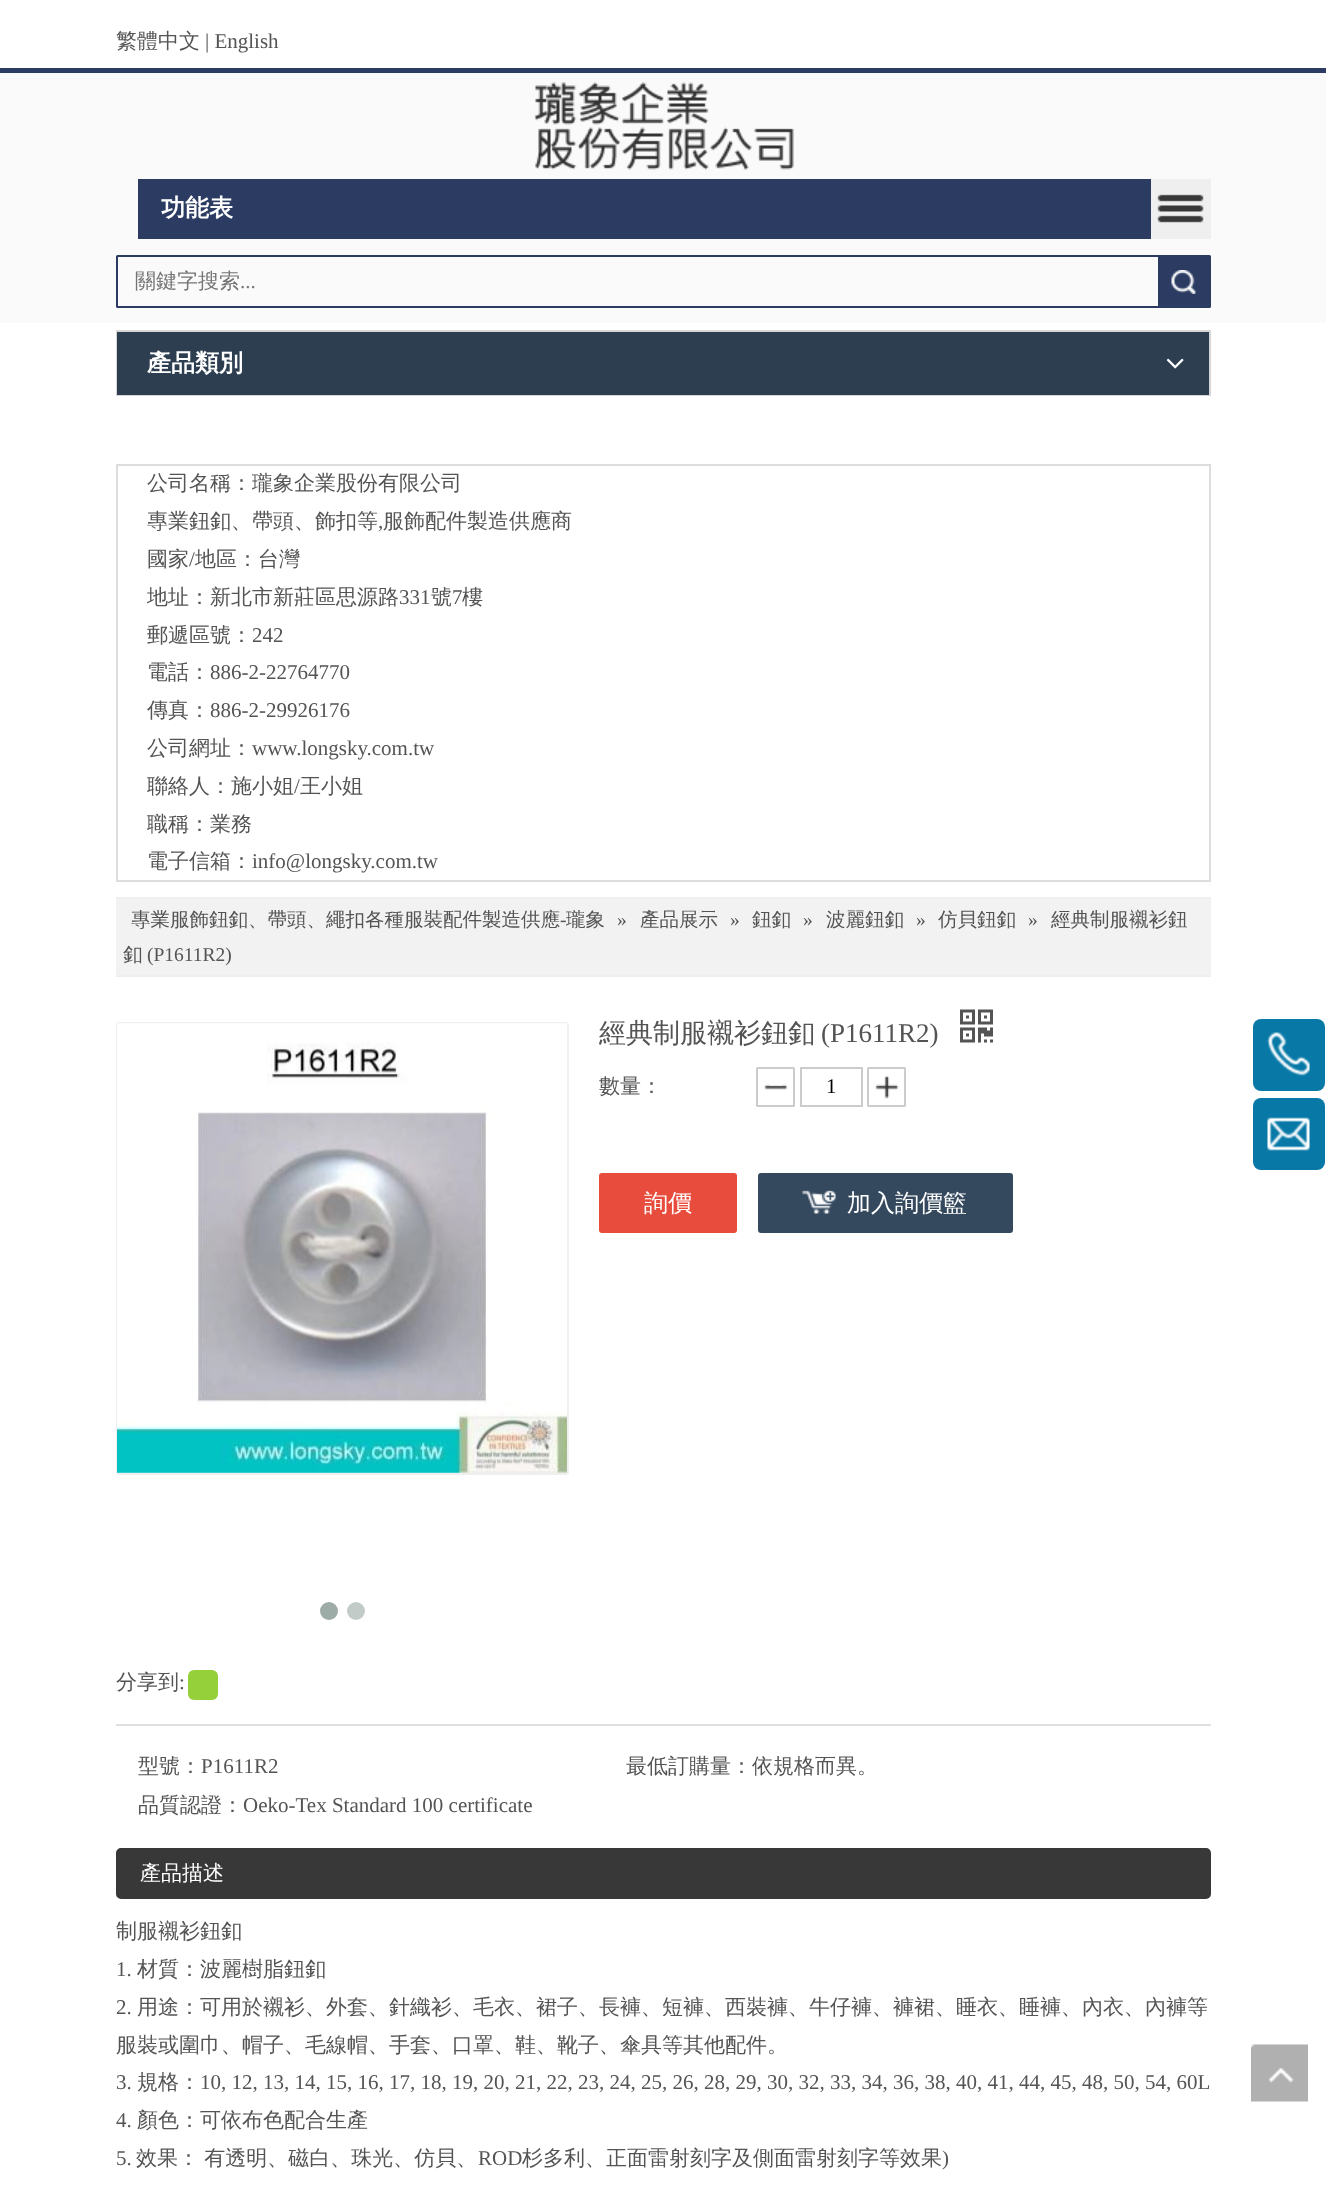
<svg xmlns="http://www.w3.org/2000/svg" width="1326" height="2185">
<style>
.a{font:500 21px WenQuanYi Zen Hei;fill:#545454}
.b{font:21px Liberation Serif;fill:#545454}
.c{font:bold 24px WenQuanYi Zen Hei;fill:#fff}
.d{font:500 21px WenQuanYi Zen Hei;fill:#757575}
.e{font:21px Liberation Serif;fill:#757575}
.f{font:500 19.5px WenQuanYi Zen Hei;fill:#545454}
.g{font:19.5px Liberation Serif;fill:#545454}
.h{font:500 27px WenQuanYi Zen Hei;fill:#545454}
.i{font:27px Liberation Serif;fill:#545454}
.j{font:21px Liberation Serif;fill:#000}
.k{font:500 24px WenQuanYi Zen Hei;fill:#fff}
.l{font:500 21px WenQuanYi Zen Hei;fill:#fff}
</style>
<rect width="100%" height="100%" fill="#fff"/>
<path fill="#fafafa" d="M0 73h1326v250H0z"/>
<path fill="#2b3b62" d="M0 68h1326v5H0z"/>
<image href="1.png" x="534" y="82" width="260" height="88"/>
<path fill="#2b3b62" d="M138 179h1013v60H138z"/>
<path fill="#efefef" d="M1151 179h60v60H1151z"/>
<image href="2.png" x="1157" y="194" width="47" height="29"/>
<rect fill="none" stroke="#2b3b62" stroke-width="2" x="117" y="256" width="1093" height="51" rx="0.5"/>
<path fill="#2b3b62" d="M1158 257h51v49H1158z"/>
<image href="3.png" x="1171" y="270" width="25" height="24"/>
<path fill="none" stroke="#d6d6d6" stroke-width="2" d="M117 331h1093v64H117z"/>
<path fill="#2c3e50" d="M117 332h1092v63H117z"/>
<image href="4.png" x="1166" y="358" width="18" height="11"/>
<path fill="none" stroke="#ddd" stroke-width="2" d="M117 465h1093v416H117z"/>
<path fill="#f2f2f2" d="M116 899h1095v76H116z"/>
<path fill="#eee" d="M116 897h1095v2H116z"/>
<path fill="#eee" d="M116 975h1095v2H116z"/>
<image href="5.png" x="960" y="1009" width="33" height="34"/>
<image href="6.png" x="764" y="1084" width="24" height="6"/>
<rect fill="none" stroke="#ccc" stroke-width="2" x="757" y="1068" width="37" height="38" rx="0.5"/>
<path fill="none" stroke="#ccc" stroke-width="2" d="M801 1068h61v38H801z"/>
<image href="7.png" x="875" y="1075" width="24" height="24"/>
<rect fill="none" stroke="#ccc" stroke-width="2" x="868" y="1068" width="37" height="38" rx="0.5"/>
<rect fill="#e74c3c" x="599" y="1173" width="138" height="60" rx="3"/>
<rect fill="#34495e" x="758" y="1173" width="255" height="60" rx="3"/>
<image href="8.png" x="802" y="1190" width="34" height="24"/>
<rect fill="none" stroke="#efefef" stroke-width="2" x="117" y="1023" width="451" height="451" rx="2"/>
<image href="9.png" x="117" y="1023" width="450" height="450"/>
<circle fill="#9eaca7" cx="329" cy="1611" r="9"/>
<circle fill="#c3cbc8" cx="356" cy="1611" r="9"/>
<rect fill="#95d03a" x="188" y="1670" width="30" height="30" rx="6"/>
<path fill="#dfdfdf" d="M116 1724h1095v2H116z"/>
<rect fill="#383838" stroke="#383838" stroke-width="2" x="117" y="1849" width="1093" height="49" rx="4"/>
<rect fill="#0879a7" x="1253" y="1019" width="72" height="72" rx="8"/>
<image href="10.png" x="1267" y="1032" width="43" height="44"/>
<rect fill="#0879a7" x="1253" y="1098" width="72" height="72" rx="8"/>
<image href="11.png" x="1267" y="1117" width="43" height="34"/>
<image href="12.png" x="1251" y="2044" width="57" height="58"/>
<text class="a" x="116" y="48">繁體中文</text>
<text class="b" x="205" y="48">| English</text>
<text class="c" x="161" y="216">功能表</text>
<text class="d" x="135" y="288">關鍵字搜索</text>
<text class="e" x="240" y="288">...</text>
<text class="c" x="147" y="371">產品類別</text>
<text class="a" x="147" y="490">公司名稱：瓏象企業股份有限公司</text>
<text class="a" x="147" y="528">專業鈕釦、帶頭、飾扣等</text>
<text class="b" x="378" y="528">,</text>
<text class="a" x="383" y="528">服飾配件製造供應商</text>
<text class="a" x="147" y="566">國家</text>
<text class="b" x="189" y="566">/</text>
<text class="a" x="195" y="566">地區：台灣</text>
<text class="a" x="147" y="604">地址：新北市新莊區思源路</text>
<text class="b" x="399" y="604">331</text>
<text class="a" x="431" y="604">號</text>
<text class="b" x="452" y="604">7</text>
<text class="a" x="462" y="604">樓</text>
<text class="a" x="147" y="642">郵遞區號：</text>
<text class="b" x="252" y="642">242</text>
<text class="a" x="147" y="679">電話：</text>
<text class="b" x="210" y="679">886-2-22764770</text>
<text class="a" x="147" y="717">傳真：</text>
<text class="b" x="210" y="717">886-2-29926176</text>
<text class="a" x="147" y="755">公司網址：</text>
<text class="b" x="252" y="755">www.longsky.com.tw</text>
<text class="a" x="147" y="793">聯絡人：施小姐</text>
<text class="b" x="294" y="793">/</text>
<text class="a" x="300" y="793">王小姐</text>
<text class="a" x="147" y="831">職稱：業務</text>
<text class="a" x="147" y="868">電子信箱：</text>
<text class="b" x="252" y="868">info@longsky.com.tw</text>
<text class="f" x="131" y="926">專業服飾鈕釦、帶頭、繩扣各種服裝配件製造供應</text>
<text class="g" x="560" y="926">-</text>
<text class="f" x="566" y="926">瓏象</text>
<text class="g" x="617" y="926">»</text>
<text class="f" x="640" y="926">產品展示</text>
<text class="g" x="730" y="926">»</text>
<text class="f" x="752" y="926">鈕釦</text>
<text class="g" x="803" y="926">»</text>
<text class="f" x="826" y="926">波麗鈕釦</text>
<text class="g" x="916" y="926">»</text>
<text class="f" x="938" y="926">仿貝鈕釦</text>
<text class="g" x="1028" y="926">»</text>
<text class="f" x="1051" y="926">經典制服襯衫鈕</text>
<text class="f" x="123" y="961">釦</text>
<text class="g" x="147" y="961">(P1611R2)</text>
<text class="h" x="599" y="1042">經典制服襯衫鈕釦</text>
<text class="i" x="821" y="1042">(P1611R2)</text>
<text class="a" x="599" y="1093">數量：</text>
<text class="j" x="826" y="1093">1</text>
<text class="k" x="644" y="1211">詢價</text>
<text class="k" x="847" y="1211">加入詢價籃</text>
<text class="a" x="116" y="1689">分享到</text>
<text class="b" x="179" y="1689">:</text>
<text class="a" x="138" y="1773">型號：</text>
<text class="b" x="201" y="1773">P1611R2</text>
<text class="a" x="626" y="1773">最低訂購量：依規格而異。</text>
<text class="a" x="138" y="1812">品質認證：</text>
<text class="b" x="243" y="1812">Oeko-Tex Standard 100 certificate</text>
<text class="l" x="140" y="1880">產品描述</text>
<text class="a" x="116" y="1938">制服襯衫鈕釦</text>
<text class="b" x="116" y="1976">1.</text>
<text class="a" x="137" y="1976">材質：波麗樹脂鈕釦</text>
<text class="b" x="116" y="2014">2.</text>
<text class="a" x="137" y="2014">用途：可用於襯衫、外套、針織衫、毛衣、裙子、長褲、短褲、西裝褲、牛仔褲、褲裙、睡衣、睡褲、內衣、內褲等</text>
<text class="a" x="116" y="2052">服裝或圍巾、帽子、毛線帽、手套、口罩、鞋、靴子、傘具等其他配件。</text>
<text class="b" x="116" y="2089">3.</text>
<text class="a" x="137" y="2089">規格：</text>
<text class="b" x="200" y="2089">10, 12, 13, 14, 15, 16, 17, 18, 19, 20, 21, 22, 23, 24, 25, 26, 28, 29, 30, 32, 33, 34, 36, 38, 40, 41, 44, 45, 48, 50, 54, 60L</text>
<text class="b" x="116" y="2127">4.</text>
<text class="a" x="137" y="2127">顏色：可依布色配合生產</text>
<text class="b" x="116" y="2165">5.</text>
<text class="a" x="136" y="2165" word-spacing="-1">效果： 有透明、磁白、珠光、仿貝、</text>
<text class="b" x="478" y="2165">ROD</text>
<text class="a" x="522" y="2165">杉多利、正面雷射刻字及側面雷射刻字等效果</text>
<text class="b" x="942" y="2165">)</text>
</svg>
